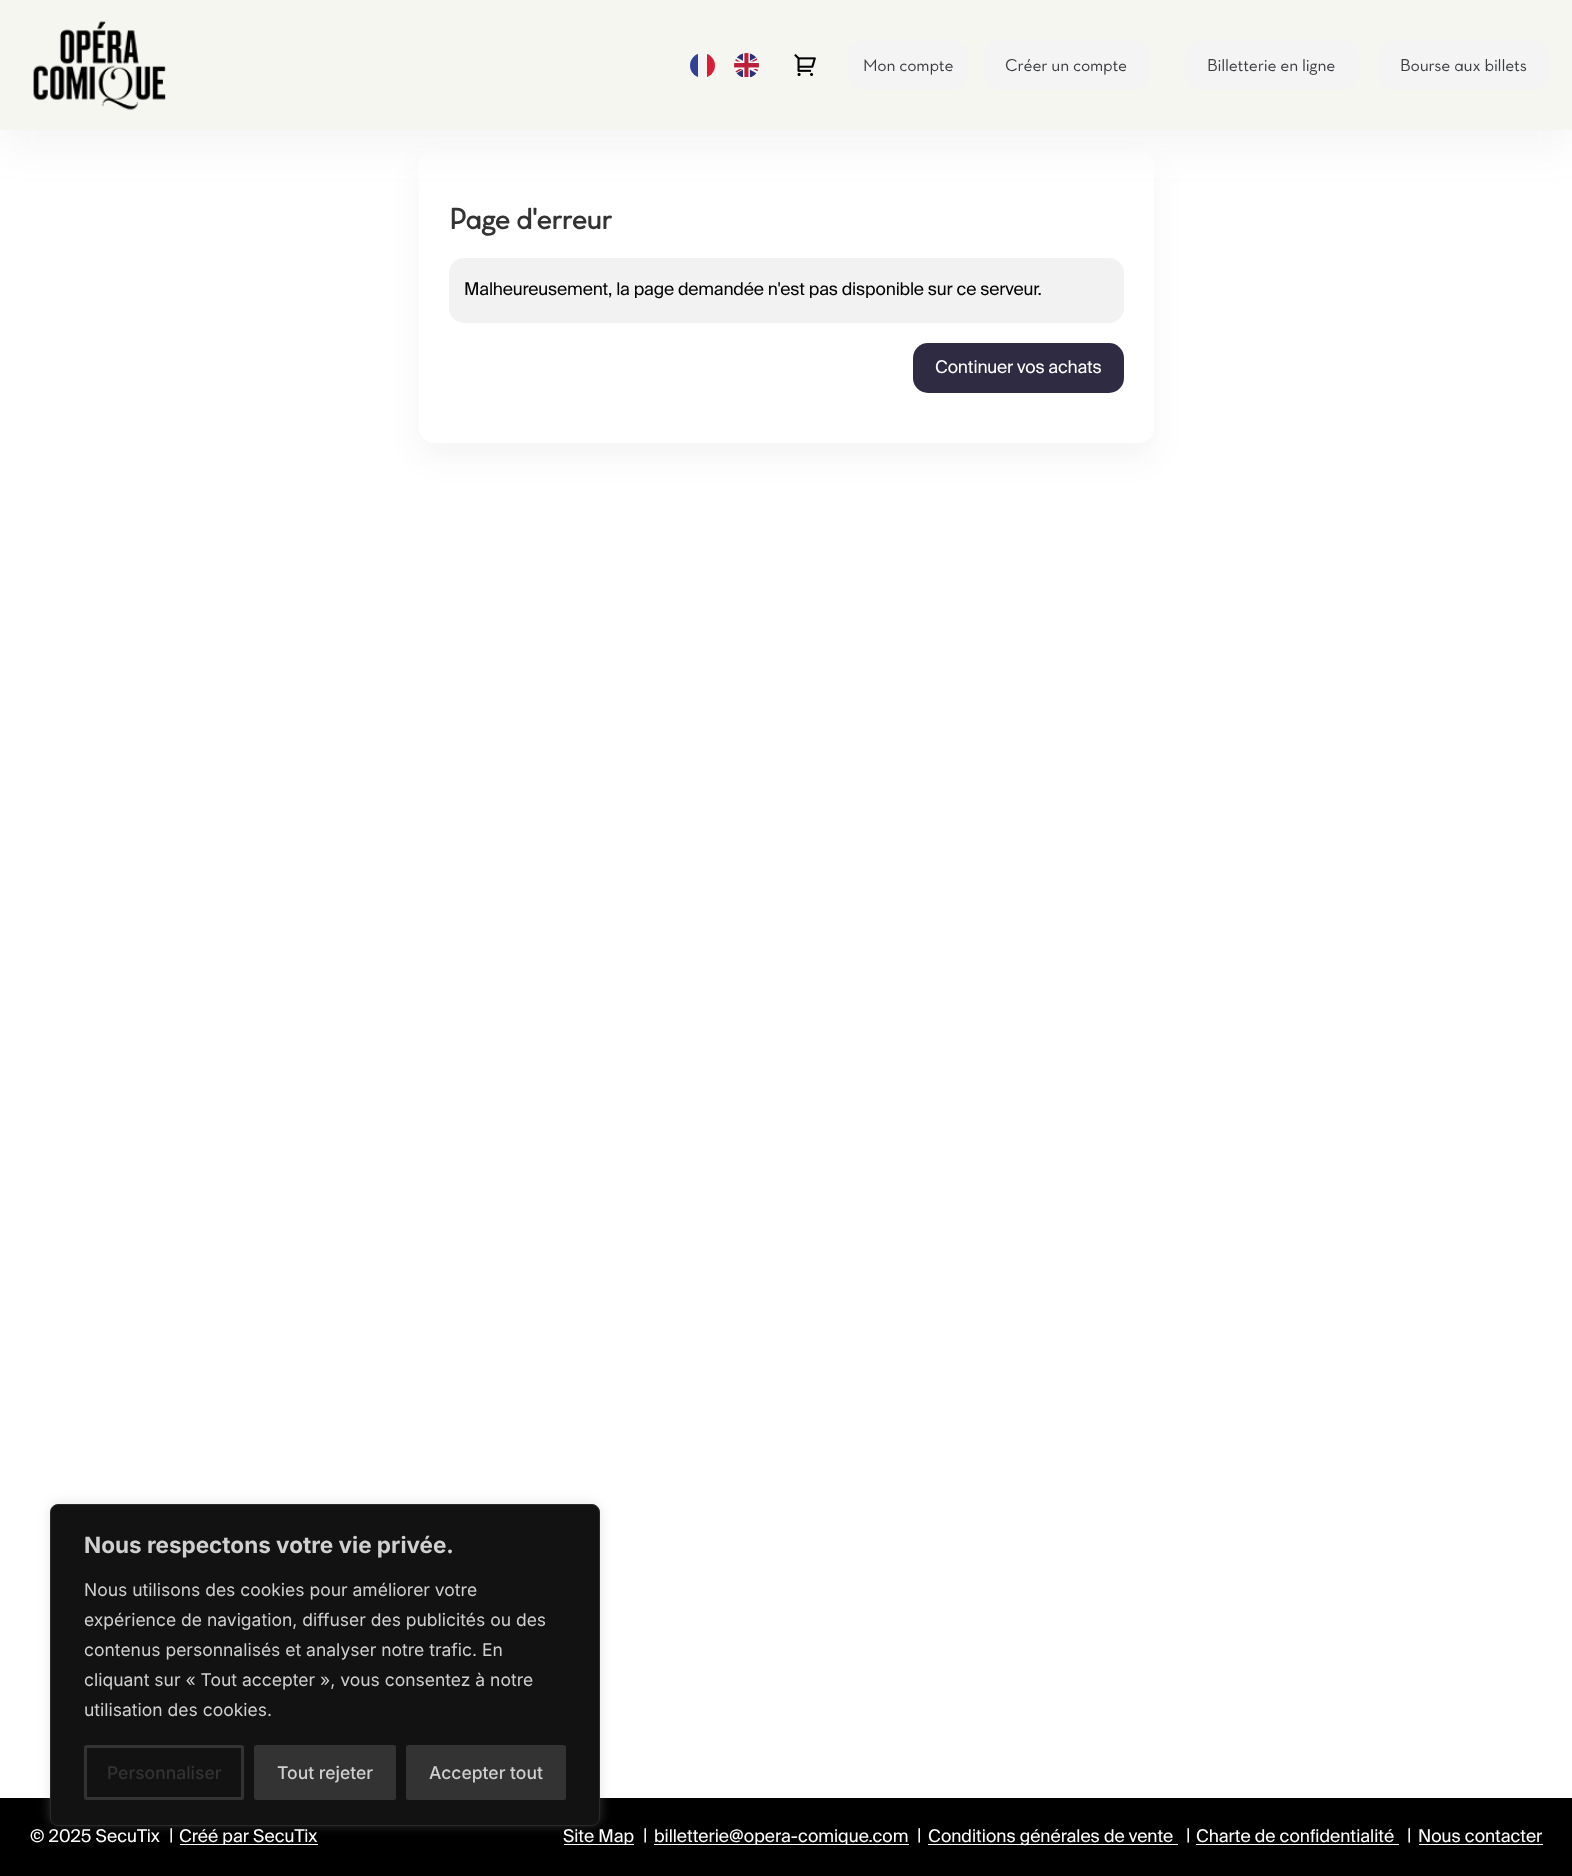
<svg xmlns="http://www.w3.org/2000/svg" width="1572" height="1876">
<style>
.a{font:17.5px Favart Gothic;letter-spacing:-0.18px;fill:#3b3d40}
.b{font:bold 30px Favart Gothic;letter-spacing:-0.5px;fill:#333}
.c{font:17.5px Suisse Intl;letter-spacing:-0.18px;fill:#000}
.d{font:17.5px Suisse Intl;letter-spacing:-0.18px;fill:#fff}
.e{font:17.5px Suisse Intl;fill:#fff}
.f{font:bold 22.5px Inter;fill:#d0d0d0}
.g{font:17.5px Inter;fill:#d0d0d0}
.h{font:500 17.5px Inter;fill:#333}
.i{font:500 17.5px Inter;fill:#d0d0d0}
</style>
<defs>
<clipPath id="clip1"><rect x="690" y="53" width="25" height="25" rx="12.5"/></clipPath>
</defs>
<rect width="100%" height="100%" fill="#fff"/>
<rect fill="#2121210d" filter="blur(15px)" x="419" y="165" width="735" height="293" rx="15"/>
<rect fill="#fff" x="419" y="150" width="735" height="293" rx="15"/>
<path fill="#7a7a7a14" filter="blur(19px)" d="M0 18h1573v130H0z"/>
<path fill="#f6f6f0" d="M0 0h1572v130H0z"/>
<image href="1.png" x="33" y="21" width="133" height="89"/>
<g clip-path="url(#clip1)">
<path fill="#324095" d="M690 53h8v24H690z"/>
<path fill="#f4f4f4" d="M698 53h9v24H698z"/>
<path fill="#d81e34" d="M707 53h8v24H707z"/>
</g>
<image href="2.png" x="734" y="53" width="25" height="24"/>
<image href="3.png" x="794" y="54" width="22" height="22"/>
<rect fill="#f4f4f5" x="848" y="40" width="120" height="50" rx="15"/>
<rect fill="#f4f4f5" x="983" y="40" width="167" height="50" rx="15"/>
<rect fill="#f4f4f5" x="1185" y="40" width="174" height="50" rx="15"/>
<rect fill="#f4f4f5" x="1378" y="40" width="171" height="50" rx="15"/>
<rect fill="#f2f2f2" x="449" y="258" width="675" height="65" rx="15"/>
<rect fill="#2f2b43" x="913" y="343" width="211" height="50" rx="15"/>
<path fill="#000" d="M0 1798h1572v78H0z"/>
<path fill="#fff" d="M180 1844h138v1H180z"/>
<path fill="#fff" d="M564 1844h70v1H564z"/>
<path fill="#fff" d="M654 1844h255v1H654z"/>
<path fill="#fff" d="M928 1844h250v1H928z"/>
<path fill="#fff" d="M1196 1844h203v1H1196z"/>
<path fill="#fff" d="M1419 1844h124v1H1419z"/>
<rect fill="#acabab4d" filter="blur(6px)" x="50" y="1503" width="550" height="322" rx="8"/>
<rect fill="#121212" stroke="#2a2a2a" x="50.5" y="1504.5" width="549" height="321" rx="7.5"/>
<rect fill="none" stroke="#333" stroke-width="3" x="85.5" y="1746.5" width="157" height="52" rx="1"/>
<rect fill="#333" stroke="#333" stroke-width="3" x="255.5" y="1746.5" width="139" height="52" rx="1"/>
<rect fill="#333" stroke="#333" stroke-width="3" x="407.5" y="1746.5" width="157" height="52" rx="1"/>
<text class="a" x="863" y="71">Mon compte</text>
<text class="a" x="1005" y="71">Créer un compte</text>
<text class="a" x="1207" y="71">Billetterie en ligne</text>
<text class="a" x="1400" y="71">Bourse aux billets</text>
<text class="b" x="449" y="229">Page d'erreur</text>
<text class="c" x="464" y="295">Malheureusement, la page demandée n'est pas disponible sur ce serveur.</text>
<text class="d" x="935" y="373">Continuer vos achats</text>
<text class="e" x="30" y="1842">© 2025 SecuTix</text>
<text class="e" x="169" y="1841">|</text>
<text class="e" x="179" y="1842">Créé par SecuTix</text>
<text class="e" x="563" y="1842">Site Map</text>
<text class="e" x="643" y="1841">|</text>
<text class="e" x="654" y="1842">billetterie@opera-comique.com</text>
<text class="e" x="917" y="1841">|</text>
<text class="e" x="928" y="1842">Conditions générales de vente</text>
<text class="e" x="1186" y="1841">|</text>
<text class="e" x="1196" y="1842">Charte de confidentialité</text>
<text class="e" x="1407" y="1841">|</text>
<text class="e" x="1418" y="1842">Nous contacter</text>
<text class="f" x="84" y="1553">Nous respectons votre vie privée.</text>
<text class="g" x="84" y="1596">Nous utilisons des cookies pour améliorer votre</text>
<text class="g" x="84" y="1626">expérience de navigation, diffuser des publicités ou des</text>
<text class="g" x="84" y="1656">contenus personnalisés et analyser notre trafic. En</text>
<text class="g" x="84" y="1686">cliquant sur « Tout accepter », vous consentez à notre</text>
<text class="g" x="84" y="1716">utilisation des cookies.</text>
<text class="h" x="107" y="1779">Personnaliser</text>
<text class="i" x="277" y="1779">Tout rejeter</text>
<text class="i" x="429" y="1779">Accepter tout</text>
</svg>
